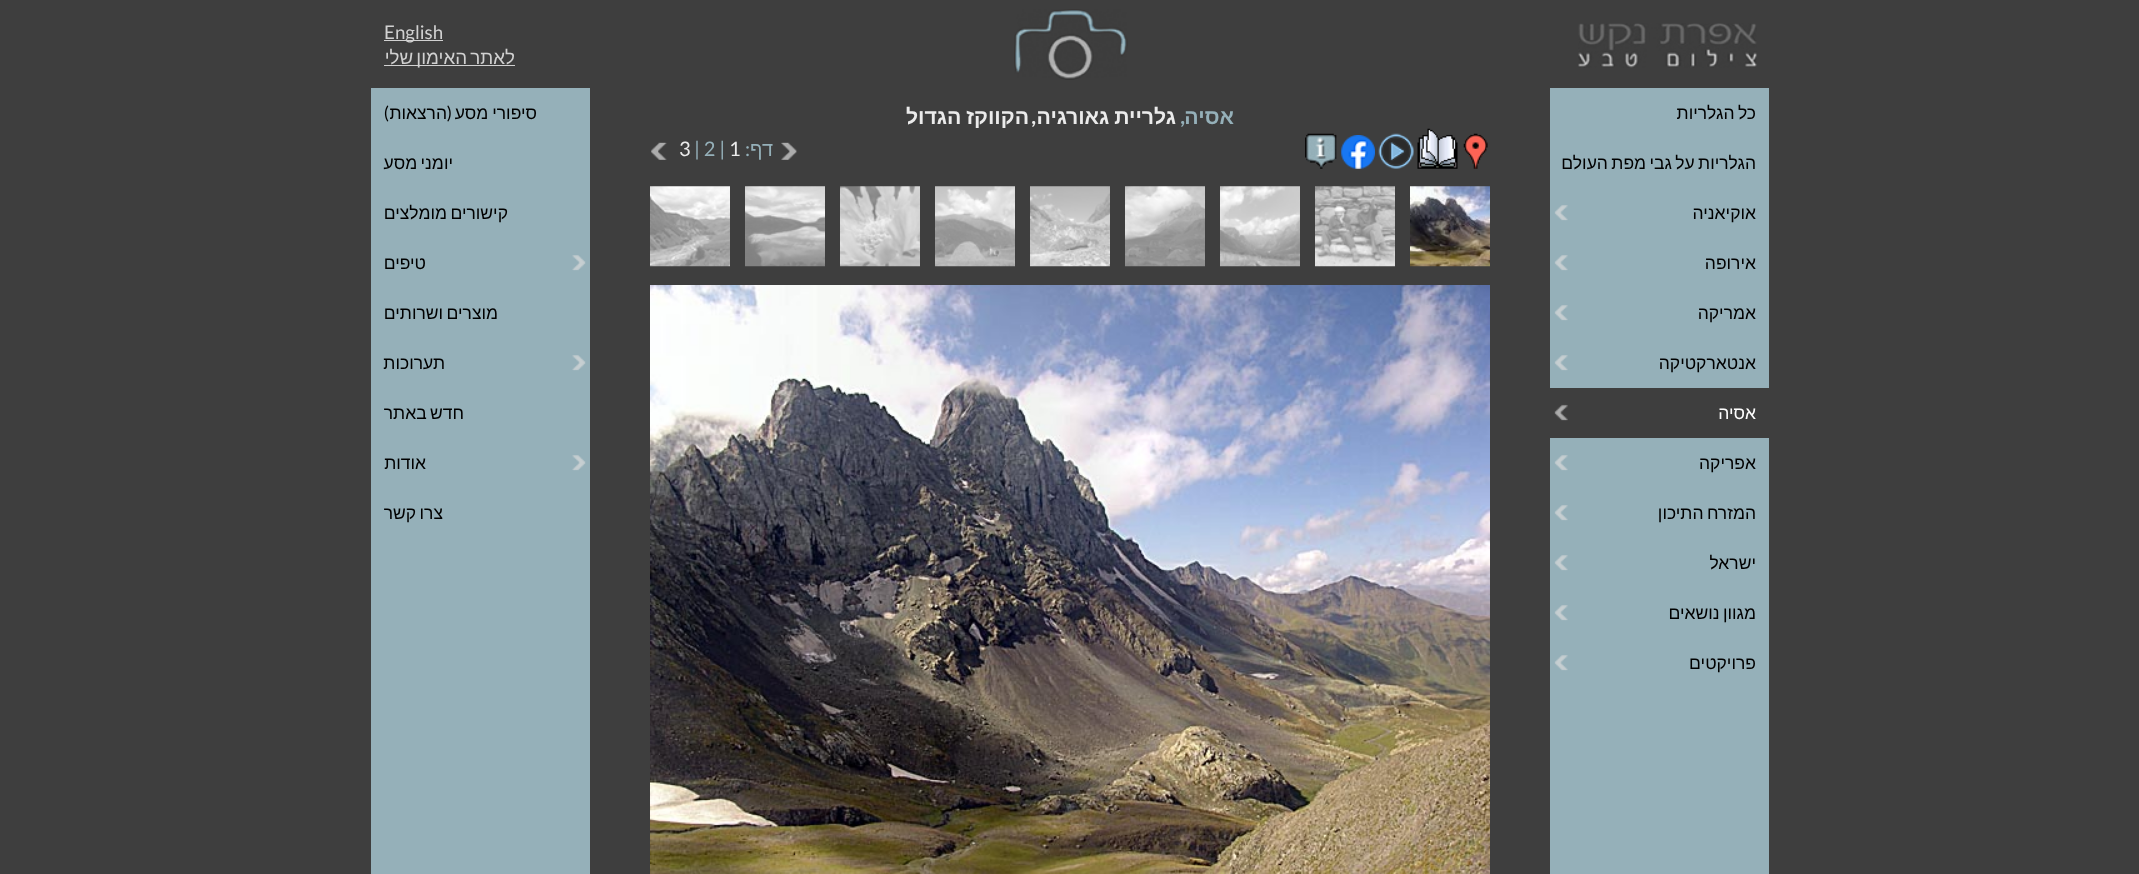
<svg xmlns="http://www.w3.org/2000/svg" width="2139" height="874">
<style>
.a{font:18.75px Lato;fill:#d1d1d1}
.b{font:18.75px Liberation Sans;direction:rtl;fill:#d1d1d1}
.c{font:17.5px Liberation Sans;direction:rtl;fill:#000}
.d{font:17.5px Liberation Sans;direction:rtl;fill:#fff}
.e{font:17.5px Lato;direction:rtl;fill:#000}
.f{font:bold 21.25px Liberation Sans;direction:rtl;fill:#95b0b9}
.g{font:bold 21.25px Lato;direction:rtl;fill:#95b0b9}
.h{font:bold 21.25px Liberation Sans;direction:rtl;fill:#ebebeb}
.i{font:bold 21.25px Lato;direction:rtl;fill:#ebebeb}
.j{font:20px Liberation Sans;direction:rtl;fill:#95b0b9}
.k{font:20px Lato;direction:rtl;fill:#95b0b9}
.l{font:20px Lato;fill:#ebebeb}
.m{font:20px Lato;fill:#95b0b9}
</style>
<rect width="100%" height="100%" fill="#3e3e3e"/>
<image href="1.png" x="1014" y="9" width="114" height="71"/>
<image href="2.png" x="1578" y="23" width="179" height="45"/>
<path fill="#d1d1d1" d="M384 40h59v1H384z"/>
<path fill="#d1d1d1" d="M384 65h131v1H384z"/>
<path fill="#95b0b9" d="M1550 88h219v786H1550z"/>
<image href="3.png" x="1554" y="205" width="14" height="16"/>
<image href="3.png" x="1554" y="255" width="14" height="16"/>
<image href="3.png" x="1554" y="305" width="14" height="16"/>
<image href="3.png" x="1554" y="355" width="14" height="16"/>
<path fill="#3e3e3e" d="M1550 388h219v50H1550z"/>
<image href="4.png" x="1554" y="404" width="14" height="17"/>
<image href="3.png" x="1554" y="455" width="14" height="16"/>
<image href="3.png" x="1554" y="505" width="14" height="16"/>
<image href="3.png" x="1554" y="555" width="14" height="16"/>
<image href="3.png" x="1554" y="605" width="14" height="16"/>
<image href="3.png" x="1554" y="655" width="14" height="16"/>
<path fill="#95b0b9" d="M371 88h219v786H371z"/>
<image href="5.png" x="572" y="255" width="14" height="16"/>
<image href="5.png" x="572" y="355" width="14" height="16"/>
<image href="5.png" x="572" y="455" width="14" height="16"/>
<image href="6.png" x="1463" y="133" width="25" height="36"/>
<image href="7.png" x="1417" y="128" width="41" height="41"/>
<image href="8.png" x="1378" y="133" width="36" height="36"/>
<image href="9.png" x="1341" y="135" width="34" height="34"/>
<image href="10.png" x="1305" y="133" width="32" height="36"/>
<image href="11.png" x="781" y="142" width="16" height="18"/>
<image href="12.png" x="651" y="142" width="16" height="18"/>
<image href="13.png" x="1410" y="186" width="80" height="81"/>
<image href="14.png" x="1315" y="186" width="80" height="81"/>
<image href="15.png" x="1220" y="186" width="80" height="81"/>
<image href="16.png" x="1125" y="186" width="80" height="81"/>
<image href="17.png" x="1030" y="186" width="80" height="81"/>
<image href="18.png" x="935" y="186" width="80" height="81"/>
<image href="19.png" x="840" y="186" width="80" height="81"/>
<image href="20.png" x="745" y="186" width="80" height="81"/>
<image href="21.png" x="650" y="186" width="80" height="81"/>
<image href="22.png" x="650" y="285" width="840" height="589"/>
<text class="a" x="384" y="39">English</text>
<text class="b" x="515" y="64" word-spacing="-2">לאתר האימון שלי</text>
<text class="c" x="1756" y="119" word-spacing="-1.5">כל הגלריות</text>
<text class="c" x="1756" y="169" word-spacing="-1.5">הגלריות על גבי מפת העולם</text>
<text class="c" x="1756" y="219">אוקיאניה</text>
<text class="c" x="1756" y="269">אירופה</text>
<text class="c" x="1756" y="319">אמריקה</text>
<text class="c" x="1756" y="369">אנטארקטיקה</text>
<text class="d" x="1756" y="419">אסיה</text>
<text class="c" x="1756" y="469">אפריקה</text>
<text class="c" x="1756" y="519" word-spacing="-1.5">המזרח התיכון</text>
<text class="c" x="1756" y="569">ישראל</text>
<text class="c" x="1756" y="619" word-spacing="-1.5">מגוון נושאים</text>
<text class="c" x="1756" y="669">פרויקטים</text>
<text class="c" x="537" y="119" word-spacing="-1">סיפורי מסע</text>
<text class="e" x="452" y="119">(</text>
<text class="c" x="447" y="119">הרצאות</text>
<text class="e" x="389" y="119">)</text>
<text class="c" x="453" y="169" word-spacing="-1.5">יומני מסע</text>
<text class="c" x="508" y="219" word-spacing="-1.5">קישורים מומלצים</text>
<text class="c" x="426" y="269">טיפים</text>
<text class="c" x="498" y="319" word-spacing="-1.5">מוצרים ושרותים</text>
<text class="c" x="445" y="369">תערוכות</text>
<text class="c" x="464" y="419" word-spacing="-1.5">חדש באתר</text>
<text class="c" x="426" y="469">אודות</text>
<text class="c" x="443" y="519" word-spacing="-1.5">צרו קשר</text>
<text class="f" x="1234" y="124">אסיה</text>
<text class="g" x="1185" y="124">,</text>
<text class="h" x="1176" y="124" word-spacing="-1">גלריית גאורגיה</text>
<text class="i" x="1036" y="124">,</text>
<text class="h" x="1029" y="124" word-spacing="-1">הקווקז הגדול</text>
<text class="j" x="773" y="156">דף</text>
<text class="k" x="750" y="156">:</text>
<text class="l" x="729" y="156">1</text>
<text class="m" x="694" y="156">| 2 |</text>
<text class="l" x="679" y="156">3</text>
</svg>
